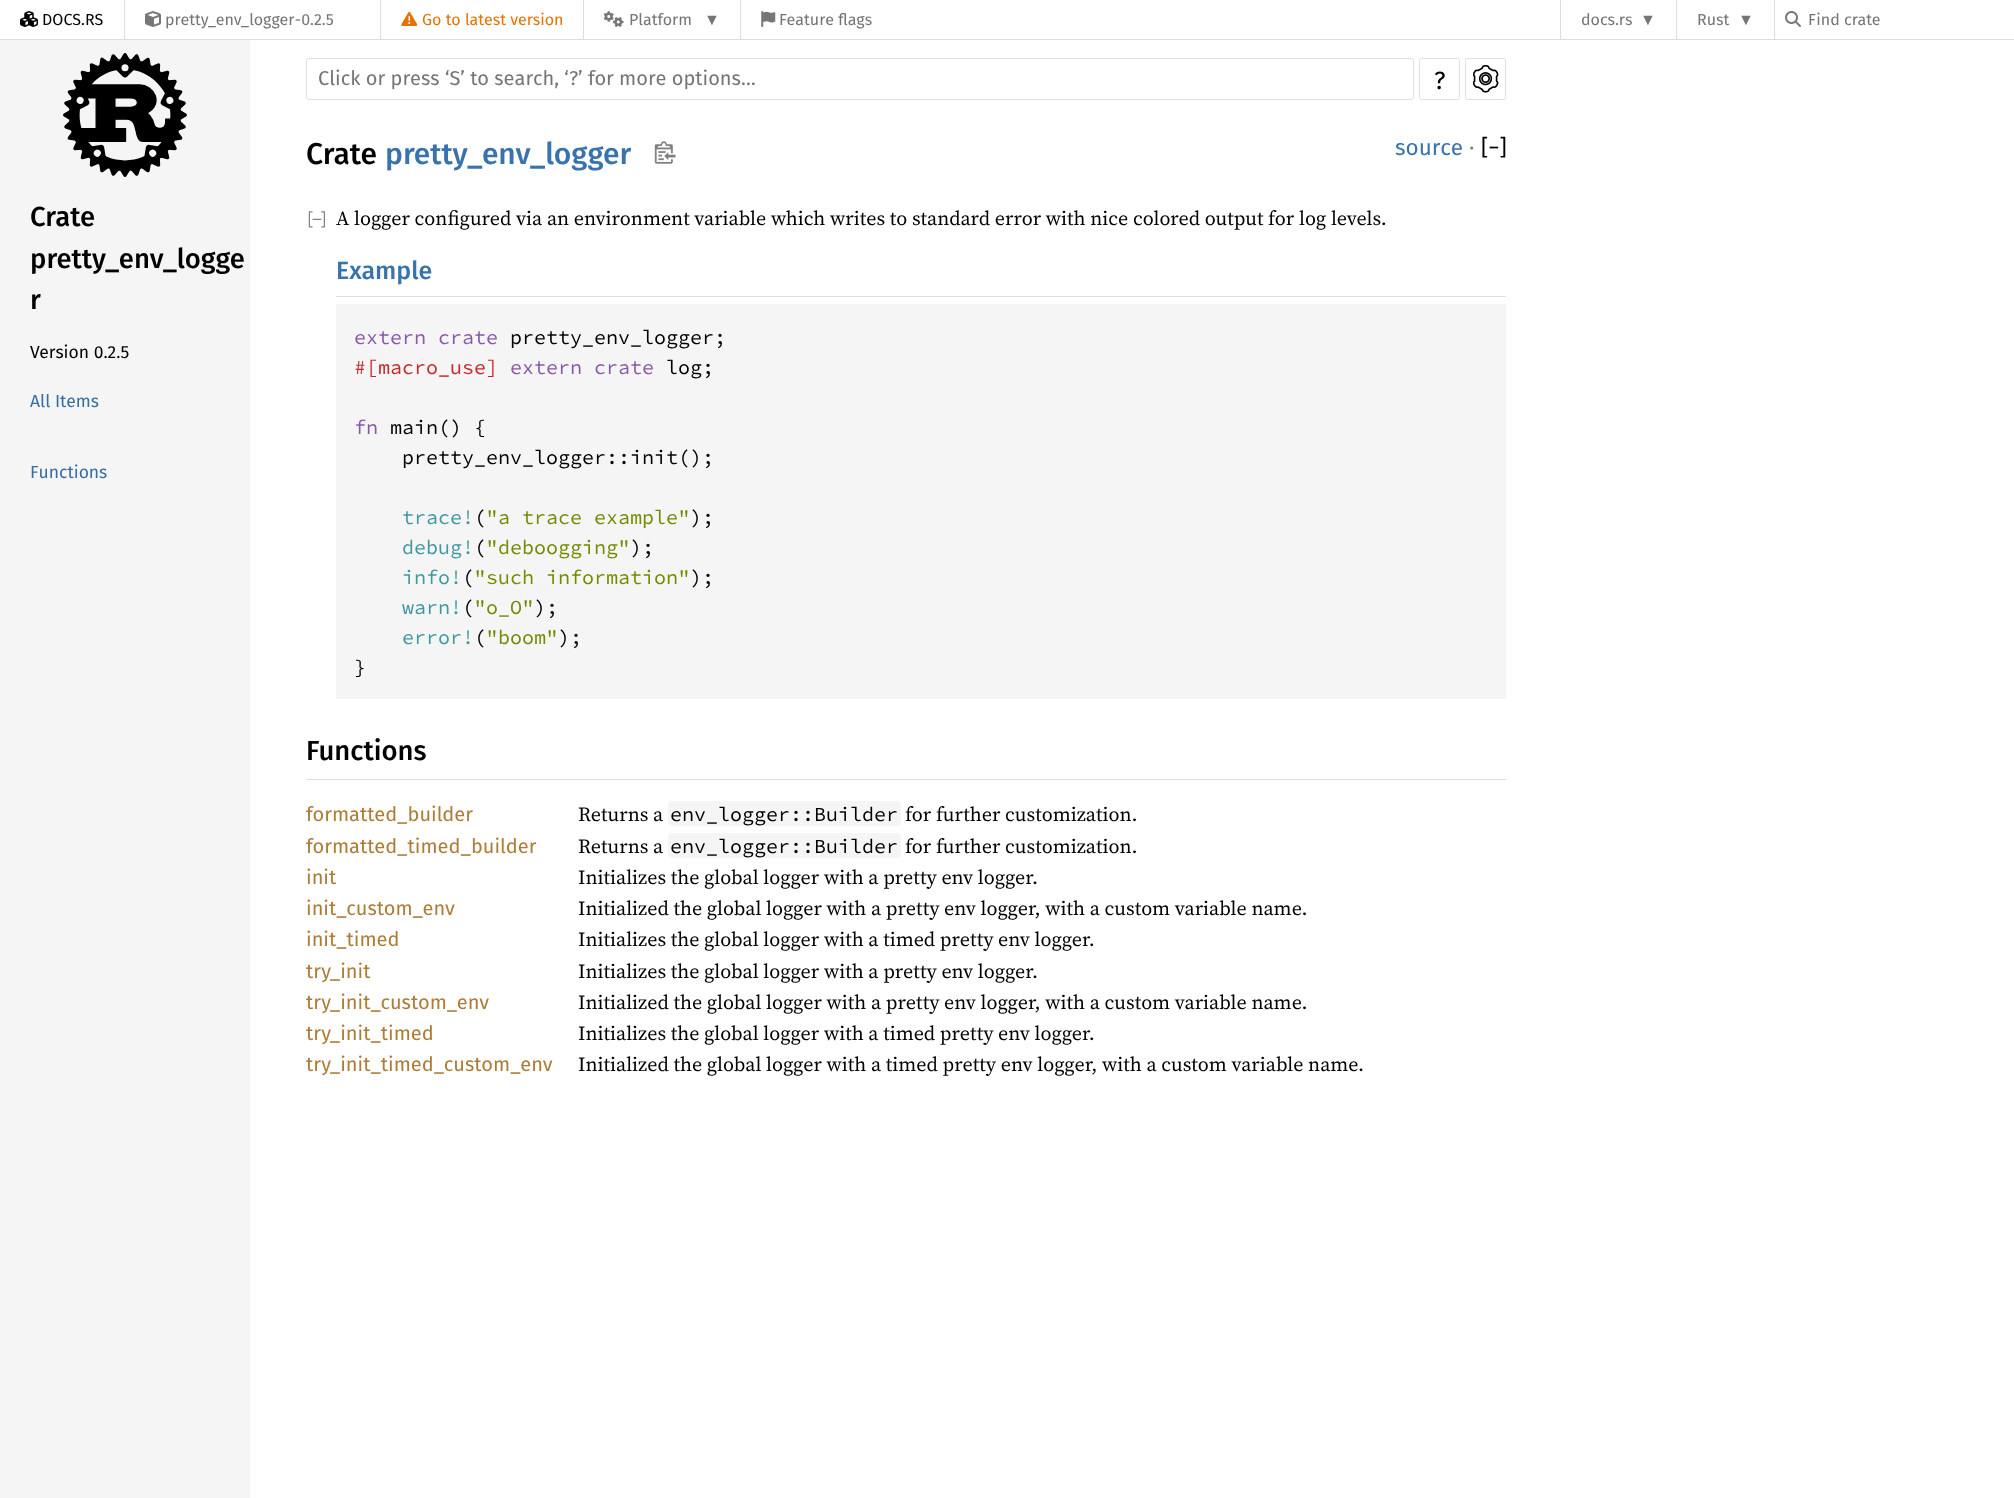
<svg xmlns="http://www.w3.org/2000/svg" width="2014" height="1498">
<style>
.a{font:16px Fira Sans;fill:#000}
.b{font:16px Fira Sans;fill:#757575}
.c{font:16px Fira Sans;fill:#e57300}
.d{font:16px Liberation Sans;fill:#757575}
.e{font:500 27.5px Fira Sans;fill:#000}
.f{font:17.5px Fira Sans;fill:#000}
.g{font:17.5px Fira Sans;fill:#356da4}
.h{font:20px Fira Sans;fill:#757575}
.i{font:25px Fira Sans;fill:#000}
.j{font:500 30px Fira Sans;fill:#000}
.k{font:500 30px Fira Sans;fill:#3873ad}
.l{font:22.5px Fira Sans;fill:#3873ad}
.m{font:22.5px Fira Sans;fill:#808080}
.n{font:22.5px Fira Sans;fill:#000}
.o{font:20px 'Source Serif 4';fill:#000}
.p{font:500 25px Fira Sans;fill:#3873ad}
.q{font:20px Source Code Pro;fill:#8959a8}
.r{font:20px Source Code Pro;fill:#000}
.s{font:20px Source Code Pro;fill:#c82829}
.t{font:20px Source Code Pro;fill:#3e999f}
.u{font:20px Source Code Pro;fill:#718c00}
.v{font:20px Fira Sans;fill:#ad7c37}
</style>
<rect width="100%" height="100%" fill="#fff"/>
<path fill="#ddd" d="M0 39h2014v1H0z"/>
<image href="1.png" x="20" y="11" width="18" height="16"/>
<path fill="#ddd" d="M124 0h1v39H124z"/>
<image href="2.png" x="145" y="11" width="16" height="16"/>
<path fill="#ddd" d="M380 0h1v39H380z"/>
<image href="3.png" x="401" y="12" width="17" height="14"/>
<path fill="#ddd" d="M583 0h1v39H583z"/>
<image href="4.png" x="603" y="11" width="21" height="16"/>
<path fill="#ddd" d="M740 0h1v39H740z"/>
<image href="5.png" x="761" y="11" width="15" height="16"/>
<path fill="#ddd" d="M1560 0h1v39H1560z"/>
<path fill="#ddd" d="M1676 0h1v39H1676z"/>
<path fill="#ddd" d="M1774 0h1v39H1774z"/>
<image href="6.png" x="1785" y="11" width="16" height="16"/>
<path fill="#f5f5f5" d="M0 40h250v1458H0z"/>
<image href="7.png" x="63" y="53" width="124" height="124"/>
<rect fill="none" stroke="#e0e0e0" x="306.5" y="58.5" width="1107" height="41" rx="2"/>
<rect fill="none" stroke="#e0e0e0" x="1419.5" y="58.5" width="40" height="41" rx="2"/>
<rect fill="none" stroke="#e0e0e0" x="1465.5" y="58.5" width="40" height="41" rx="2"/>
<image href="8.png" x="1473" y="65" width="26" height="28"/>
<image href="9.png" x="654" y="141" width="22" height="23"/>
<image href="10.png" x="308" y="211" width="17" height="17"/>
<path fill="#ddd" d="M336 296h1170v1H336z"/>
<path fill="#f5f5f5" d="M336 304h1170v395H336z"/>
<path fill="#ddd" d="M306 779h1200v1H306z"/>
<rect fill="#f5f5f5" x="668" y="801" width="233" height="25" rx="4"/>
<rect fill="#f5f5f5" x="668" y="833" width="233" height="25" rx="4"/>
<text class="a" x="42" y="25">DOCS.RS</text>
<text class="b" x="165" y="25">pretty_env_logger-0.2.5</text>
<text class="c" x="422" y="25">Go to latest version</text>
<text class="b" x="629" y="25">Platform</text>
<text class="d" x="704" y="25">▼</text>
<text class="b" x="779" y="25">Feature flags</text>
<text class="b" x="1581" y="25">docs.rs</text>
<text class="d" x="1640" y="25">▼</text>
<text class="b" x="1697" y="25">Rust</text>
<text class="d" x="1738" y="25">▼</text>
<text class="b" x="1808" y="25">Find crate</text>
<text class="e" x="30" y="226">Crate</text>
<text class="e" x="30" y="268">pretty_env_logge</text>
<text class="e" x="30" y="309">r</text>
<text class="f" x="30" y="358">Version 0.2.5</text>
<text class="g" x="30" y="407">All Items</text>
<text class="g" x="30" y="478">Functions</text>
<text class="h" x="318" y="85">Click or press ‘S’ to search, ‘?’ for more options…</text>
<text class="i" x="1434" y="89">?</text>
<text class="j" x="306" y="164">Crate</text>
<text class="k" x="385" y="164">pretty_env_logger</text>
<text class="l" x="1395" y="155">source</text>
<text class="m" x="1469" y="155">·</text>
<text class="n" x="1481" y="155">[−]</text>
<text class="o" x="336" y="225">A logger configured via an environment variable which writes to standard error with nice colored output for log levels.</text>
<text class="p" x="336" y="279">Example</text>
<text class="q" x="354" y="344">extern crate</text>
<text class="r" x="510" y="344">pretty_env_logger;</text>
<text class="s" x="354" y="374">#[macro_use]</text>
<text class="q" x="510" y="374">extern crate</text>
<text class="r" x="666" y="374">log;</text>
<text class="q" x="354" y="434">fn</text>
<text class="r" x="390" y="434">main() {</text>
<text class="r" x="402" y="464">pretty_env_logger::init();</text>
<text class="t" x="402" y="524">trace!</text>
<text class="r" x="474" y="524">(</text>
<text class="u" x="486" y="524">"a trace example"</text>
<text class="r" x="690" y="524">);</text>
<text class="t" x="402" y="554">debug!</text>
<text class="r" x="474" y="554">(</text>
<text class="u" x="486" y="554">"deboogging"</text>
<text class="r" x="630" y="554">);</text>
<text class="t" x="402" y="584">info!</text>
<text class="r" x="462" y="584">(</text>
<text class="u" x="474" y="584">"such information"</text>
<text class="r" x="690" y="584">);</text>
<text class="t" x="402" y="614">warn!</text>
<text class="r" x="462" y="614">(</text>
<text class="u" x="474" y="614">"o_O"</text>
<text class="r" x="534" y="614">);</text>
<text class="t" x="402" y="644">error!</text>
<text class="r" x="474" y="644">(</text>
<text class="u" x="486" y="644">"boom"</text>
<text class="r" x="558" y="644">);</text>
<text class="r" x="354" y="674">}</text>
<text class="e" x="306" y="760">Functions</text>
<text class="v" x="306" y="821">formatted_builder</text>
<text class="o" x="578" y="821">Returns a</text>
<text class="r" x="670" y="821">env_logger::Builder</text>
<text class="o" x="905" y="821">for further customization.</text>
<text class="v" x="306" y="853">formatted_timed_builder</text>
<text class="o" x="578" y="853">Returns a</text>
<text class="r" x="670" y="853">env_logger::Builder</text>
<text class="o" x="905" y="853">for further customization.</text>
<text class="v" x="306" y="884">init</text>
<text class="o" x="578" y="884">Initializes the global logger with a pretty env logger.</text>
<text class="v" x="306" y="915">init_custom_env</text>
<text class="o" x="578" y="915">Initialized the global logger with a pretty env logger, with a custom variable name.</text>
<text class="v" x="306" y="946">init_timed</text>
<text class="o" x="578" y="946">Initializes the global logger with a timed pretty env logger.</text>
<text class="v" x="306" y="978">try_init</text>
<text class="o" x="578" y="978">Initializes the global logger with a pretty env logger.</text>
<text class="v" x="306" y="1009">try_init_custom_env</text>
<text class="o" x="578" y="1009">Initialized the global logger with a pretty env logger, with a custom variable name.</text>
<text class="v" x="306" y="1040">try_init_timed</text>
<text class="o" x="578" y="1040">Initializes the global logger with a timed pretty env logger.</text>
<text class="v" x="306" y="1071">try_init_timed_custom_env</text>
<text class="o" x="578" y="1071">Initialized the global logger with a timed pretty env logger, with a custom variable name.</text>
</svg>
